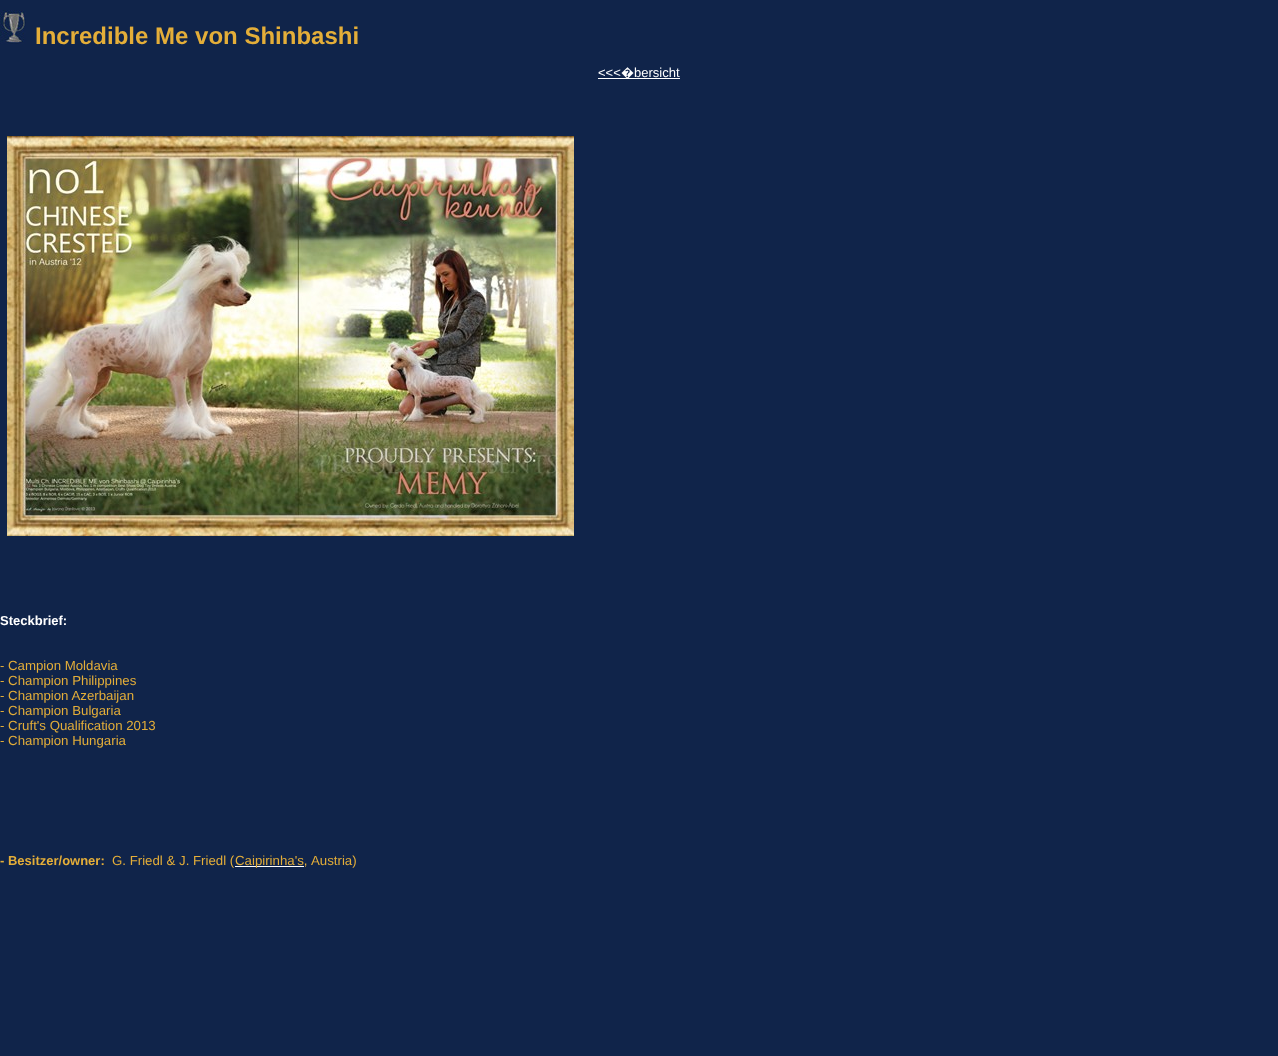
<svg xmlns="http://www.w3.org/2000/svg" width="1278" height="1056">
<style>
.a{font:bold 24px Liberation Sans;fill:#e4ae39}
.b{font:13px Liberation Sans;fill:#fff}
.c{font:13px Noto Sans;fill:#fff}
.d{font:bold 13px Liberation Sans;fill:#fff}
.e{font:13px Liberation Sans;fill:#e4ae39}
.f{font:13.25px Liberation Sans;fill:#e4ae39}
.g{font:bold 13px Liberation Sans;fill:#e4ae39}
</style>
<rect width="100%" height="100%" fill="#10244a"/>
<image href="1.png" x="0" y="10" width="26" height="34"/>
<path fill="#fff" d="M598 78h82v1H598z"/>
<image href="2.png" x="7" y="136" width="567" height="400"/>
<path fill="#fff" d="M235 866h69v1H235z"/>
<text class="a" x="35" y="44">Incredible Me von Shinbashi</text>
<text class="b" x="598" y="77">&lt;&lt;&lt;</text>
<text class="c" x="621" y="77">�</text>
<text class="b" x="634" y="77">bersicht</text>
<text class="d" x="0" y="625">Steckbrief:</text>
<text class="e" x="0" y="670">-</text>
<text class="f" x="8" y="670">Campion Moldavia</text>
<text class="f" x="0" y="685">- Champion Philippines</text>
<text class="f" x="0" y="700">- Champion Azerbaijan</text>
<text class="f" x="0" y="715">- Champion Bulgaria</text>
<text class="f" x="0" y="730">- Cruft's Qualification 2013</text>
<text class="f" x="0" y="745">- Champion Hungaria</text>
<text class="g" x="0" y="865">- Besitzer/owner:</text>
<text class="f" x="112" y="865">G. Friedl &amp; J. Friedl (</text>
<text class="f" x="235" y="865">Caipirinha's,</text>
<text class="f" x="311" y="865">Austria)</text>
</svg>
